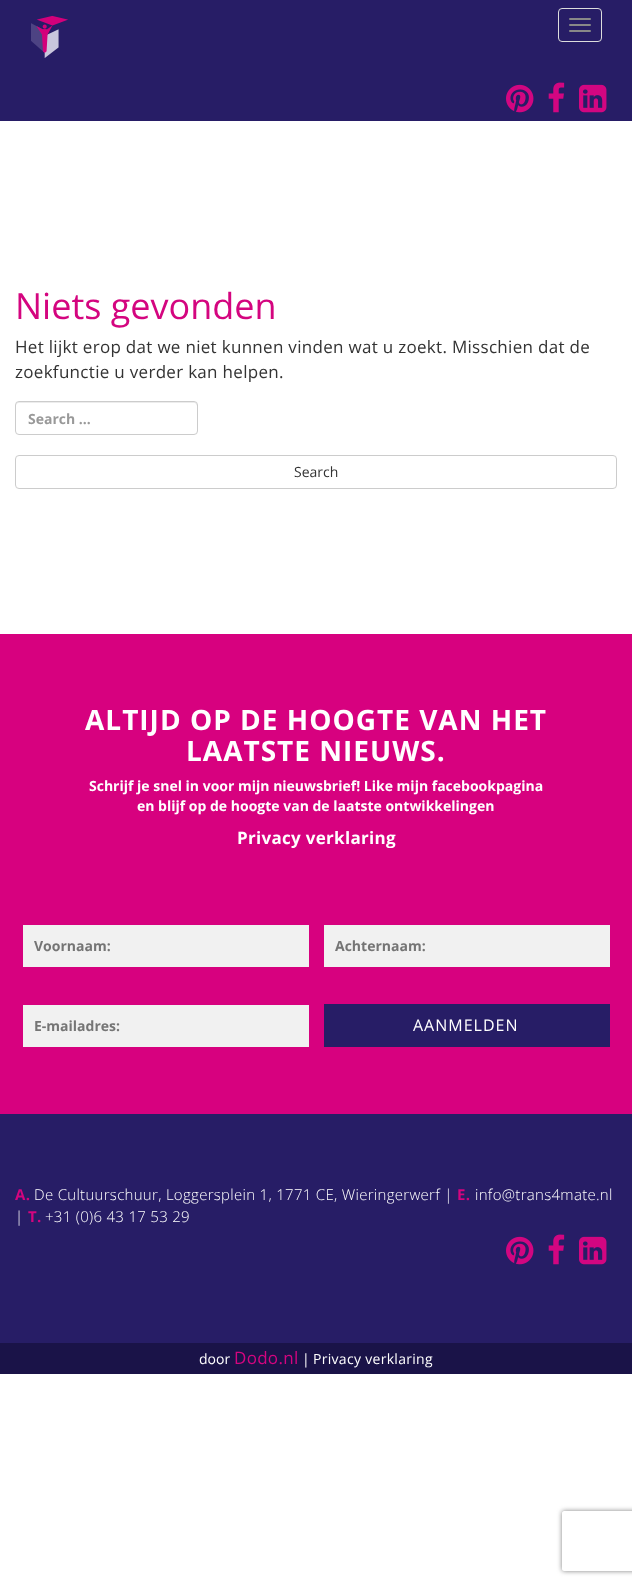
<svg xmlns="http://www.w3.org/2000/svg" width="632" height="1585">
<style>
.a{font:36px Open Sans;fill:#d4057f}
.b{font:17px Open Sans;letter-spacing:0.3px;fill:#333}
.c{font:bold 14px Open Sans;fill:#999}
.d{font:14px Open Sans;fill:#333}
.e{font:bold 28px Open Sans;letter-spacing:1px;fill:#fff}
.f{font:bold 14px Open Sans;fill:#fff}
.g{font:bold 17px Open Sans;letter-spacing:0.3px;fill:#fff}
.h{font:bold 14px Open Sans;fill:#757575}
.i{font:16px Open Sans;letter-spacing:1px;fill:#fff}
.j{font:bold 15px Open Sans;letter-spacing:0.3px;fill:#d4057f}
.k{font:300 15px Open Sans;letter-spacing:0.3px;fill:#fff}
.l{font:14px Open Sans;fill:#fff}
.m{font:17px Open Sans;letter-spacing:0.3px;fill:#d4057f}
.n{font:14px Open Sans;letter-spacing:0.3px;fill:#fff}
</style>
<defs>
<clipPath id="clip1"><path d="M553 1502h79v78h-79zm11 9h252c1 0 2 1 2 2v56c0 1-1 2-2 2h-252c-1 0-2-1-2-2v-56c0-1 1-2 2-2z" clip-rule="evenodd"/></clipPath>
</defs>
<rect width="100%" height="100%" fill="#fff"/>
<path fill="#271d66" d="M0 0h632v121H0z"/>
<image href="1.png" x="31" y="15" width="37" height="43"/>
<rect fill="none" stroke="#ddd" x="558.5" y="8.5" width="43" height="33" rx="3.5"/>
<rect fill="#888" x="569" y="18" width="22" height="2" rx="1"/>
<rect fill="#888" x="569" y="24" width="22" height="2" rx="1"/>
<rect fill="#888" x="569" y="30" width="22" height="2" rx="1"/>
<image href="2.png" x="506" y="84" width="28" height="29"/>
<image href="3.png" x="548" y="82" width="17" height="31"/>
<image href="4.png" x="579" y="84" width="28" height="29"/>
<path fill="#ececec" d="M19 403h176l1 1l1 2v-1c0-2-1-3-3-3h-175c-2 0-3 1-3 3v1c0-2 1-3 3-3z"/>
<rect fill="none" stroke="#ccc" x="15.5" y="401.5" width="182" height="33" rx="3.5"/>
<rect fill="none" stroke="#ccc" x="15.5" y="455.5" width="601" height="33" rx="3.5"/>
<path fill="#d7017f" d="M0 634h632v480H0z"/>
<path fill="#f1f1f1" d="M23 925h286v42H23z"/>
<path fill="#f1f1f1" d="M324 925h286v42H324z"/>
<path fill="#f1f1f1" d="M23 1005h286v42H23z"/>
<path fill="#271d66" d="M324 1004h286v43H324z"/>
<path fill="#271d66" d="M0 1114h632v229H0z"/>
<image href="2.png" x="506" y="1236" width="28" height="29"/>
<image href="3.png" x="548" y="1234" width="17" height="31"/>
<image href="4.png" x="579" y="1236" width="28" height="29"/>
<path fill="#1a1348" d="M0 1343h632v31H0z"/>
<g clip-path="url(#clip1)">
<rect fill="#808080" filter="blur(2.5px)" x="562" y="1511" width="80" height="60" rx="2"/>
</g>
<text class="a" x="15" y="319">Niets gevonden</text>
<text class="b" x="15" y="353">Het lijkt erop dat we niet kunnen vinden wat u zoekt. Misschien dat de</text>
<text class="b" x="15" y="378">zoekfunctie u verder kan helpen.</text>
<text class="c" x="28" y="424">Search …</text>
<text class="d" x="294" y="477">Search</text>
<text class="e" x="85" y="730">ALTIJD OP DE HOOGTE VAN HET</text>
<text class="e" x="186" y="761">LAATSTE NIEUWS.</text>
<text class="f" x="89" y="791">Schrijf je snel in voor mijn nieuwsbrief! Like mijn facebookpagina</text>
<text class="f" x="137" y="811">en blijf op de hoogte van de laatste ontwikkelingen</text>
<text class="g" x="237" y="844">Privacy verklaring</text>
<text class="h" x="34" y="951">Voornaam:</text>
<text class="h" x="335" y="951">Achternaam:</text>
<text class="h" x="34" y="1031">E-mailadres:</text>
<text class="i" x="413" y="1031">AANMELDEN</text>
<text class="j" x="15" y="1200">A.</text>
<text class="k" x="34" y="1200">De Cultuurschuur, Loggersplein 1, 1771 CE, Wieringerwerf |</text>
<text class="j" x="457" y="1200">E.</text>
<text class="k" x="475" y="1200">info@trans4mate.nl</text>
<text class="k" x="15" y="1222">|</text>
<text class="j" x="28" y="1222">T.</text>
<text class="k" x="45" y="1222">+31 (0)6 43 17 53 29</text>
<text class="l" x="199" y="1364">door</text>
<text class="m" x="234" y="1364">Dodo.nl</text>
<text class="l" x="302" y="1364">|</text>
<text class="n" x="313" y="1364">Privacy verklaring</text>
</svg>
